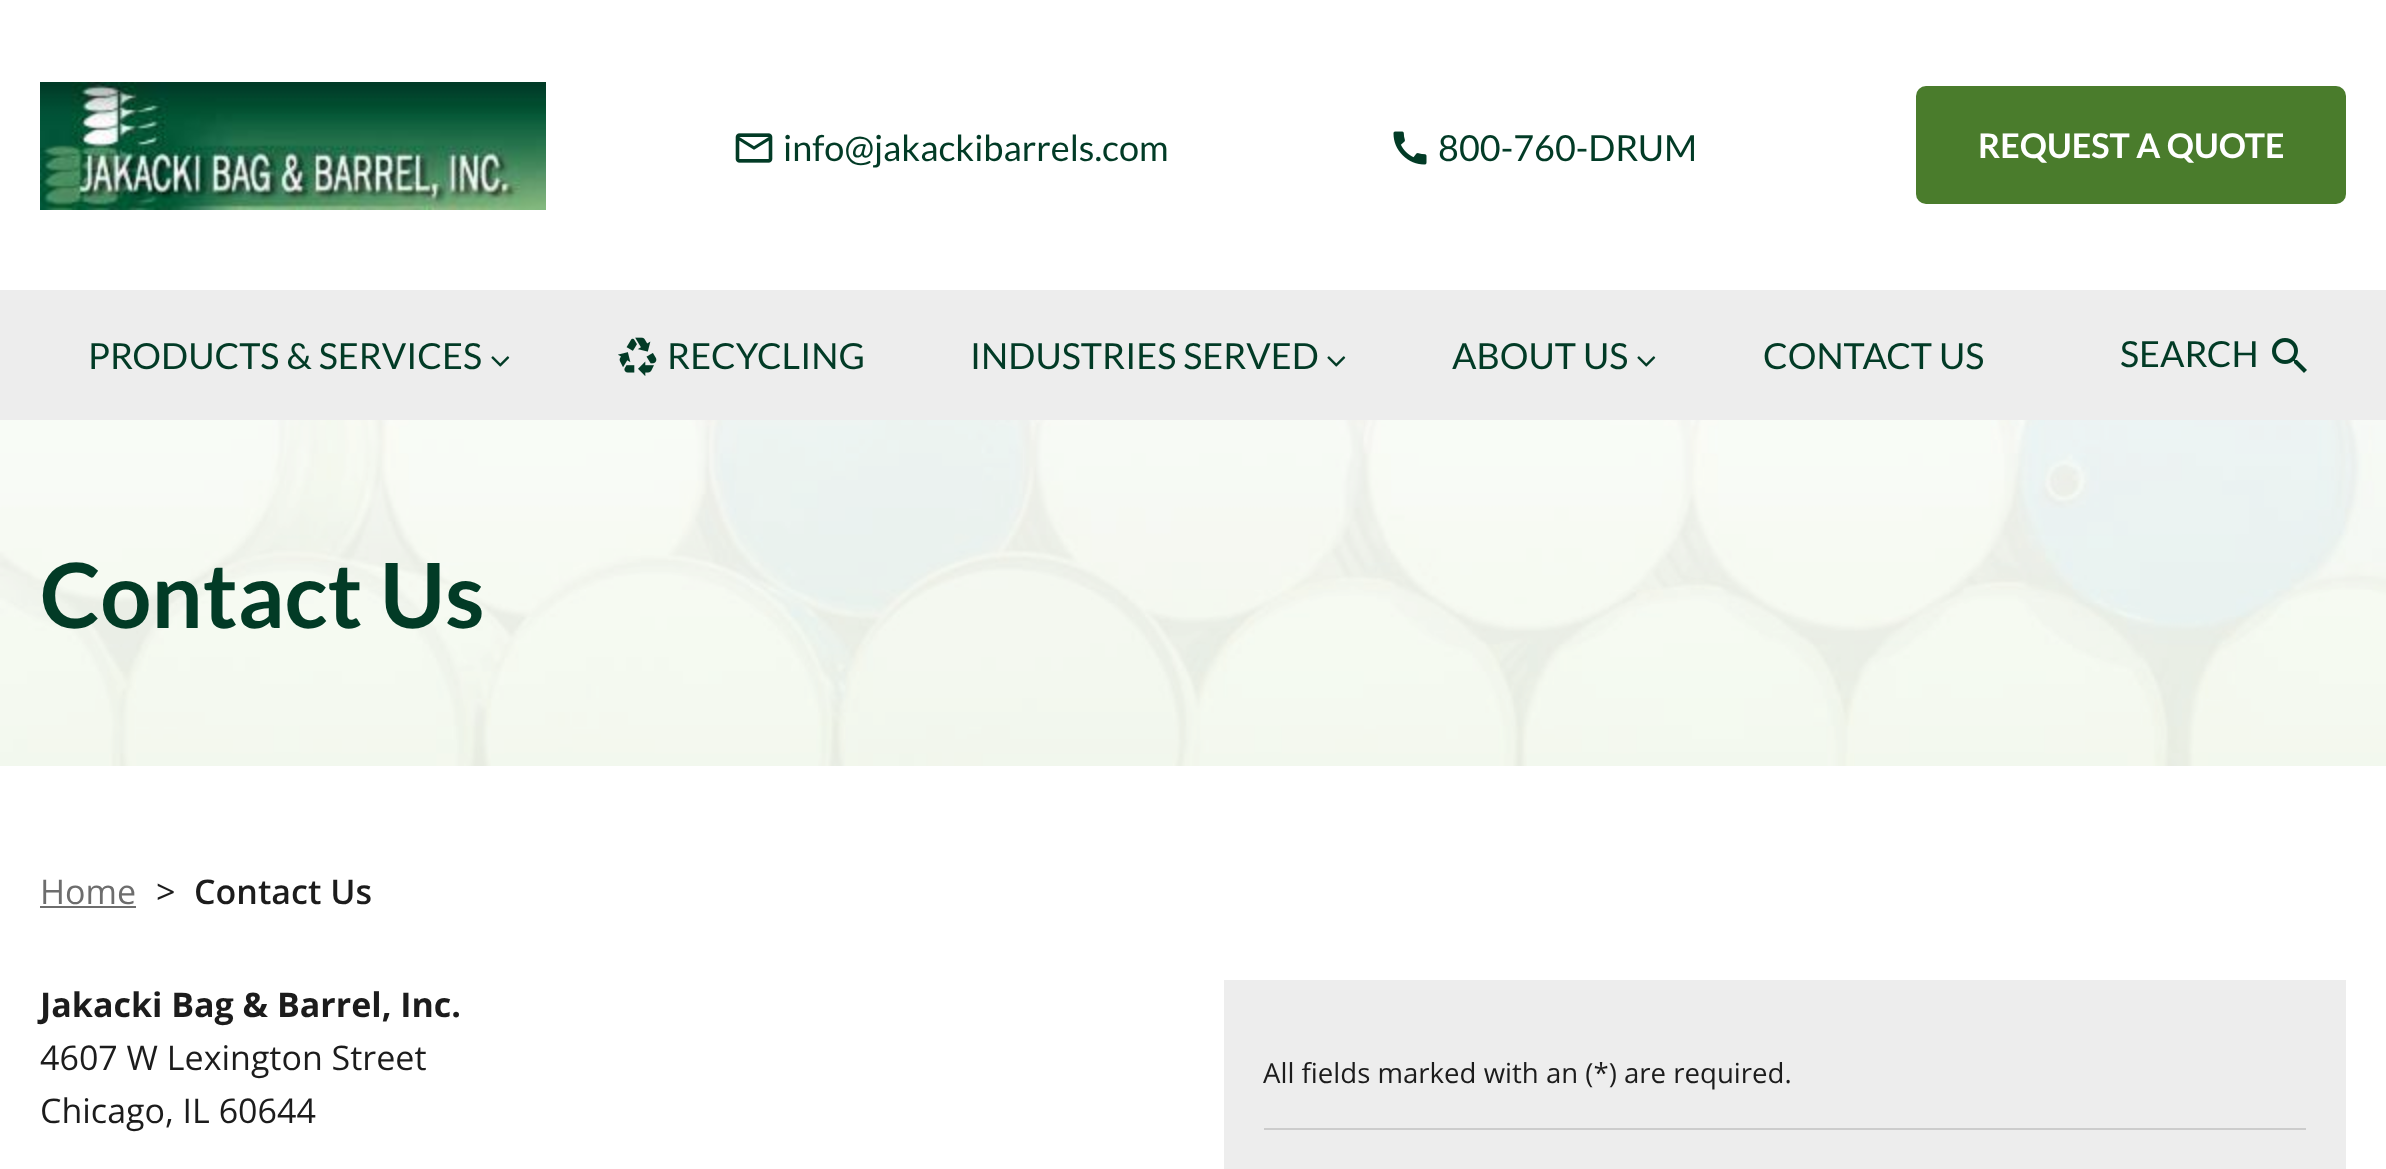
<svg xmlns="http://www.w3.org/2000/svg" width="2386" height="1169">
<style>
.a{font:36px Lato;fill:#023b26}
.b{font:bold 34px Lato;fill:#fff}
.c{font:bold 90px Lato;fill:#023b26}
.d{font:34px Open Sans;fill:#6d6d6d}
.e{font:34px Open Sans;fill:#1c1c1c}
.f{font:600 34px Open Sans;fill:#1c1c1c}
.g{font:bold 34px Open Sans;fill:#1c1c1c}
.h{font:27.6px Open Sans;fill:#1c1c1c}
</style>
<rect width="100%" height="100%" fill="#fff"/>
<image href="1.png" x="40" y="82" width="506" height="128"/>
<image href="2.png" x="735" y="133" width="38" height="30"/>
<image href="3.png" x="1393" y="131" width="34" height="34"/>
<rect fill="#4a7c2c" x="1916" y="86" width="430" height="118" rx="10"/>
<path fill="#ededed" d="M0 290h2386v130H0z"/>
<image href="4.png" x="491" y="356" width="19" height="11"/>
<image href="5.png" x="618" y="337" width="39" height="39"/>
<image href="4.png" x="1327" y="356" width="19" height="11"/>
<image href="4.png" x="1637" y="356" width="19" height="11"/>
<image href="6.png" x="2272" y="338" width="35" height="35"/>
<image href="7.png" x="0" y="420" width="2386" height="346"/>
<path fill="#6d6d6d" d="M40 906h96v2H40z"/>
<path fill="#ededed" d="M1224 980h1122v189H1224z"/>
<path fill="#ccc" d="M1264 1128h1042v2H1264z"/>
<text class="a" x="783" y="161">info@jakackibarrels.com</text>
<text class="a" x="1438" y="161">800-760-DRUM</text>
<text class="b" x="1978" y="158">REQUEST A QUOTE</text>
<text class="a" x="88" y="369">PRODUCTS &amp; SERVICES</text>
<text class="a" x="667" y="369">RECYCLING</text>
<text class="a" x="970" y="369">INDUSTRIES SERVED</text>
<text class="a" x="1452" y="369">ABOUT US</text>
<text class="a" x="1763" y="369">CONTACT US</text>
<text class="a" x="2120" y="367">SEARCH</text>
<text class="c" x="40" y="628">Contact Us</text>
<text class="d" x="40" y="904">Home</text>
<text class="e" x="156" y="904">&gt;</text>
<text class="f" x="194" y="904">Contact Us</text>
<text class="g" x="40" y="1017">Jakacki Bag &amp; Barrel, Inc.</text>
<text class="e" x="40" y="1070">4607 W Lexington Street</text>
<text class="e" x="40" y="1123">Chicago, IL 60644</text>
<text class="h" x="1263" y="1083">All fields marked with an (*) are required.</text>
</svg>
